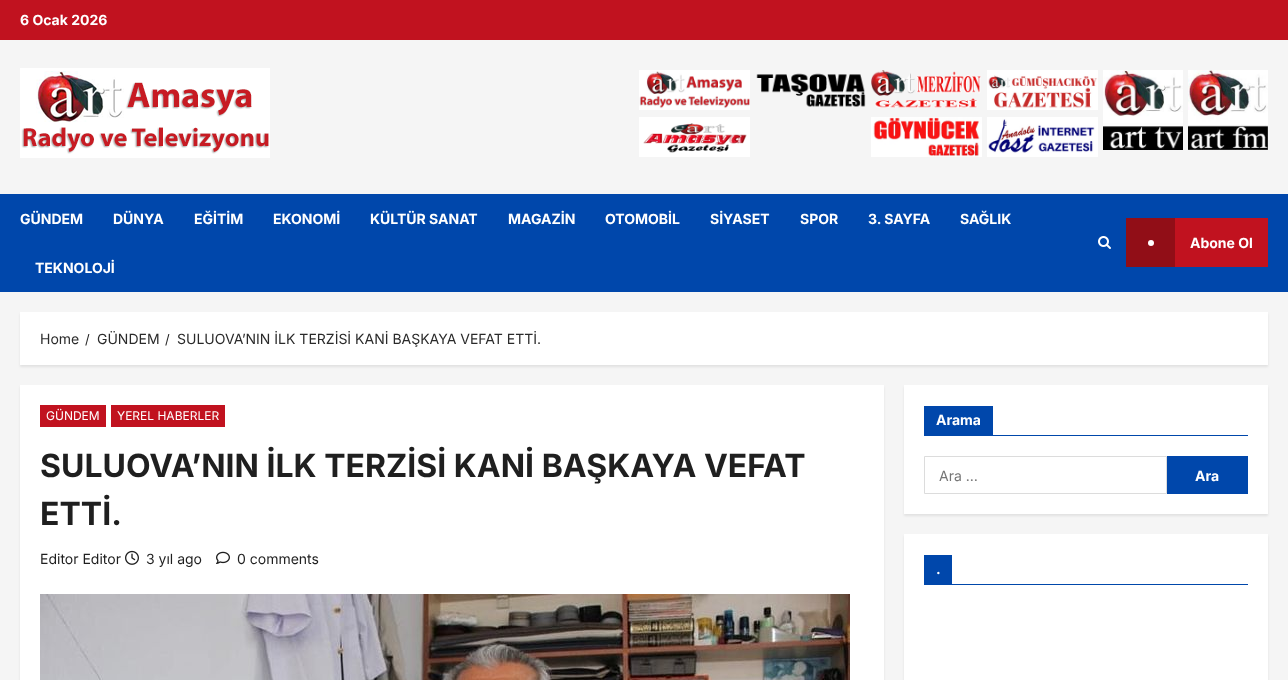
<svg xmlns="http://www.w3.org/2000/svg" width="1288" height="680">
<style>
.a{font:bold 14px Inter;fill:#fff}
.b{font:14px Inter;fill:#2a2a2a}
.c{font:13px Inter;fill:#1f1f1f}
.d{font:12px Inter;fill:#fff}
.e{font:bold 32px Inter;fill:#1f1f1f}
.f{font:14px Inter;fill:#1f1f1f}
.g{font:14px Inter;fill:#757575}
</style>
<rect width="100%" height="100%" fill="#f5f5f5"/>
<path fill="#c1121f" d="M0 0h1288v40H0z"/>
<image href="1.png" x="20" y="68" width="250" height="90"/>
<image href="2.png" x="639" y="70" width="111" height="40"/>
<image href="3.png" x="639" y="117" width="111" height="40"/>
<image href="4.png" x="756" y="73" width="110" height="34"/>
<image href="5.png" x="871" y="70" width="110" height="38"/>
<image href="6.png" x="871" y="117" width="111" height="40"/>
<image href="7.png" x="987" y="70" width="111" height="40"/>
<image href="8.png" x="987" y="117" width="111" height="40"/>
<image href="9.png" x="1103" y="70" width="80" height="80"/>
<image href="10.png" x="1188" y="70" width="80" height="80"/>
<path fill="#0047ab" d="M0 194h1288v98H0z"/>
<image href="11.png" x="1098" y="236" width="13" height="13"/>
<path fill="#c1121f" d="M1175 218h93v49H1175z"/>
<path fill="#910e17" d="M1126 218h49v49H1126z"/>
<circle fill="#fff" cx="1151" cy="243" r="3"/>
<path fill="#00000014" filter="blur(1px)" d="M20 314h1248v53H20z"/>
<path fill="#fff" d="M20 312h1248v53H20z"/>
<path fill="#00000014" filter="blur(1px)" d="M20 387h864v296H20z"/>
<path fill="#fff" d="M20 385h864v295H20z"/>
<path fill="#c1121f" d="M40 405h66v22H40z"/>
<path fill="#c1121f" d="M111 405h114v22H111z"/>
<image href="12.png" x="125" y="550" width="14" height="15"/>
<image href="13.png" x="216" y="551" width="14" height="13"/>
<image href="14.png" x="40" y="594" width="810" height="86"/>
<path fill="#00000014" filter="blur(1px)" d="M904 387h364v129H904z"/>
<path fill="#fff" d="M904 385h364v129H904z"/>
<path fill="#0047ab" d="M924 435h324v1H924z"/>
<path fill="#0047ab" d="M924 406h69v29H924z"/>
<path fill="none" stroke="#dcdcdc" d="M924.5 456.5h242v37H924.5z"/>
<path fill="#0047ab" d="M1167 456h81v38H1167z"/>
<path fill="#00000014" filter="blur(1px)" d="M904 536h364v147H904z"/>
<path fill="#fff" d="M904 534h364v146H904z"/>
<path fill="#0047ab" d="M924 584h324v1H924z"/>
<path fill="#0047ab" d="M924 555h28v29H924z"/>
<text class="a" x="20" y="25">6 Ocak 2026</text>
<text class="a" x="20" y="224">GÜNDEM</text>
<text class="a" x="113" y="224">DÜNYA</text>
<text class="a" x="194" y="224">EĞİTİM</text>
<text class="a" x="273" y="224">EKONOMİ</text>
<text class="a" x="370" y="224">KÜLTÜR SANAT</text>
<text class="a" x="508" y="224">MAGAZİN</text>
<text class="a" x="605" y="224">OTOMOBİL</text>
<text class="a" x="710" y="224">SİYASET</text>
<text class="a" x="800" y="224">SPOR</text>
<text class="a" x="868" y="224">3. SAYFA</text>
<text class="a" x="960" y="224">SAĞLIK</text>
<text class="a" x="35" y="273">TEKNOLOJİ</text>
<text class="a" x="1190" y="248">Abone Ol</text>
<text class="b" x="40" y="344">Home</text>
<text class="c" x="85" y="344">/</text>
<text class="b" x="97" y="344">GÜNDEM</text>
<text class="c" x="165" y="344">/</text>
<text class="b" x="177" y="344">SULUOVA’NIN İLK TERZİSİ KANİ BAŞKAYA VEFAT ETTİ.</text>
<text class="d" x="46" y="420">GÜNDEM</text>
<text class="d" x="117" y="420">YEREL HABERLER</text>
<text class="e" x="40" y="477">SULUOVA’NIN İLK TERZİSİ KANİ BAŞKAYA VEFAT</text>
<text class="e" x="40" y="525">ETTİ.</text>
<text class="f" x="40" y="564">Editor Editor</text>
<text class="f" x="146" y="564">3 yıl ago</text>
<text class="f" x="237" y="564">0 comments</text>
<text class="a" x="936" y="425">Arama</text>
<text class="g" x="939" y="481">Ara …</text>
<text class="a" x="1195" y="481">Ara</text>
<text class="a" x="936" y="574">.</text>
</svg>
